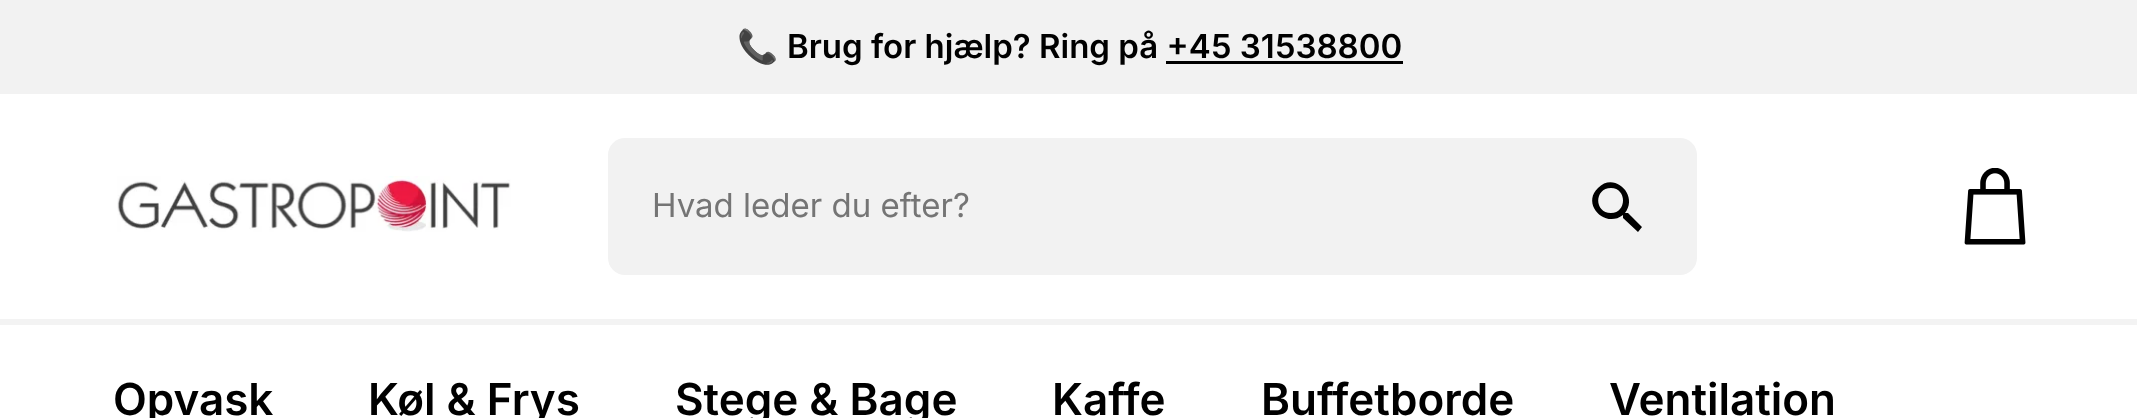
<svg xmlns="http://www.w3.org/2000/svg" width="2137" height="418">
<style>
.a{font:bold 33px Noto Color Emoji;fill:#000}
.b{font:600 33px Inter;fill:#000}
.c{font:33px Inter;fill:#757575}
.d{font:600 44px Inter;fill:#000}
</style>
<rect width="100%" height="100%" fill="#f2f2f2"/>
<path fill="#000" d="M1166 61h237v3H1166z"/>
<path fill="#fff" d="M0 94h2137v324H0z"/>
<image href="1.png" x="117" y="176" width="394" height="56"/>
<rect fill="#f2f2f2" x="608" y="138" width="1089" height="137" rx="17"/>
<path fill="#000" d="M1628 213h-3c14-18-11-42-27-25c-17 16 7 41 25 27v3l15 14l4-5zm-17 0c-17 0-17-25 0-25c16 0 16 25 0 25z"/>
<image href="2.png" x="1964" y="168" width="62" height="77"/>
<path fill="#f3f3f3" d="M0 319h2137v6H0z"/>
<text class="a" x="737" y="58">📞</text>
<text class="b" x="787" y="58">Brug for hjælp? Ring på +45 31538800</text>
<text class="c" x="652" y="217">Hvad leder du efter?</text>
<text class="d" x="113" y="415">Opvask</text>
<text class="d" x="368" y="415">Køl &amp; Frys</text>
<text class="d" x="675" y="415">Stege &amp; Bage</text>
<text class="d" x="1052" y="415">Kaffe</text>
<text class="d" x="1261" y="415">Buffetborde</text>
<text class="d" x="1609" y="415">Ventilation</text>
</svg>
